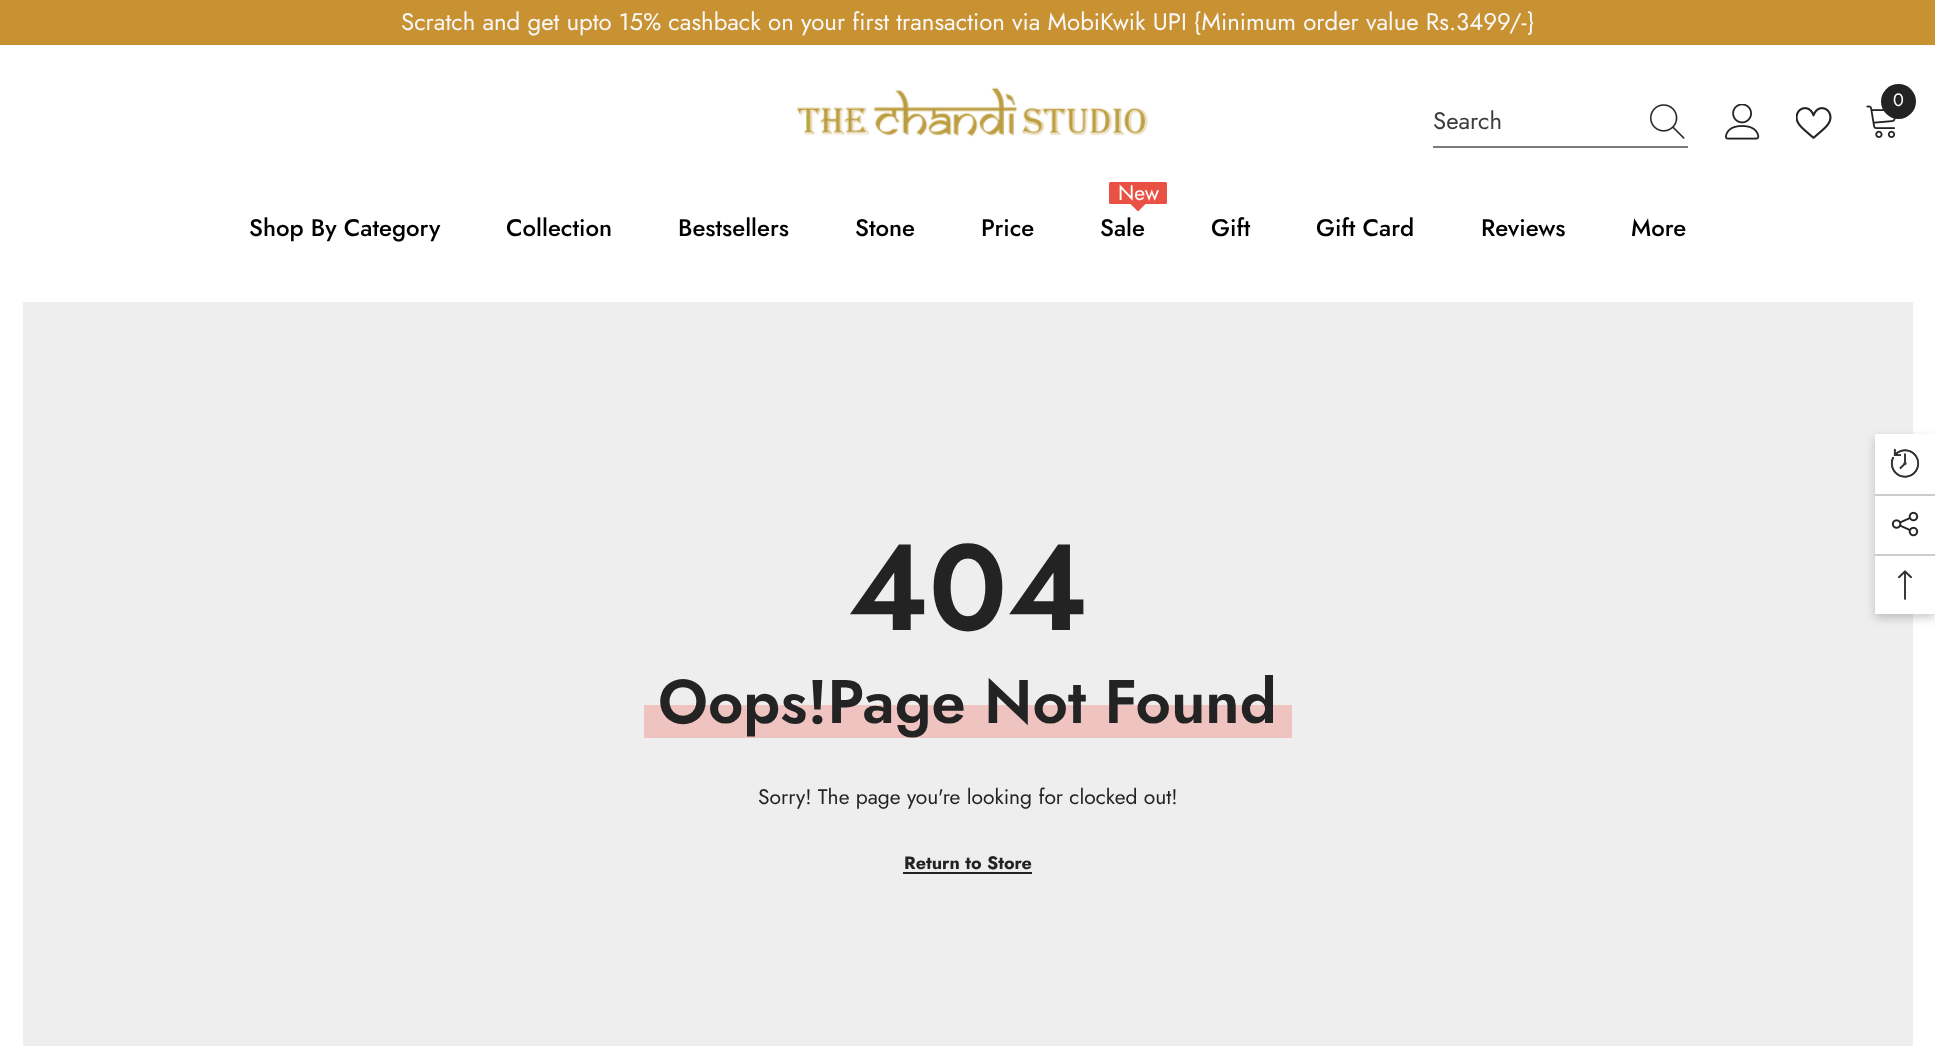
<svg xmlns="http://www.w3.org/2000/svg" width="1935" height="1046">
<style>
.a{font:24px Jost;fill:#f8f8f8}
.b{font:18px Jost;fill:#fff}
.c{font:24px Jost;fill:#3c3c3c}
.d{font:500 24px Jost;fill:#000}
.e{font:21px Jost;fill:#fff}
.f{font:600 122px Jost;fill:#232323}
.g{font:600 61.5px Jost;fill:#232323}
.h{font:21px Jost;fill:#232323}
.i{font:bold 18px Jost;fill:#232323}
</style>
<rect width="100%" height="100%" fill="#fff"/>
<path fill="#c89233" d="M0 0h1935v45H0z"/>
<image href="1.png" x="796" y="87" width="352" height="50"/>
<image href="2.png" x="1866" y="105" width="30" height="33"/>
<circle fill="#232323" cx="1898.5" cy="101.5" r="17.5"/>
<image href="3.png" x="1725" y="104" width="35" height="36"/>
<image href="4.png" x="1796" y="107" width="36" height="32"/>
<path fill="#7b7b7b" d="M1433 146h255v2H1433z"/>
<image href="5.png" x="1650" y="104" width="35" height="35"/>
<rect fill="#e95144" x="1109" y="182" width="58" height="22" rx="1.5"/>
<path fill="#e95144" d="M1130.5 204h15l-7.5 7.5z"/>
<path fill="#eee" d="M23 302h1890v744H23z"/>
<path fill="#efc3c0" d="M644 705h648v33H644z"/>
<path fill="#232323" d="M903 872h129v2H903z"/>
<path fill="#00000033" filter="blur(5px)" d="M1875 438h60v180H1875z"/>
<path fill="#fff" d="M1875 434h60v180H1875z"/>
<image href="6.png" x="1890" y="449" width="30" height="29"/>
<path fill="#ccc" d="M1875 494h60v2H1875z"/>
<image href="7.png" x="1891" y="511" width="28" height="26"/>
<path fill="#ccc" d="M1875 554h60v2H1875z"/>
<image href="8.png" x="1898" y="570" width="14" height="30"/>
<text class="a" x="401" y="30">Scratch and get upto 15% cashback on your first transaction via MobiKwik UPI {Minimum order value Rs.3499/-}</text>
<text class="b" x="1893" y="106">0</text>
<text class="c" x="1433" y="129">Search</text>
<text class="d" x="249" y="236">Shop By Category</text>
<text class="d" x="506" y="236">Collection</text>
<text class="d" x="678" y="236">Bestsellers</text>
<text class="d" x="855" y="236">Stone</text>
<text class="d" x="981" y="236">Price</text>
<text class="e" x="1118" y="200">New</text>
<text class="d" x="1100" y="236">Sale</text>
<text class="d" x="1211" y="236">Gift</text>
<text class="d" x="1316" y="236">Gift Card</text>
<text class="d" x="1481" y="236">Reviews</text>
<text class="d" x="1631" y="236">More</text>
<text class="f" x="848" y="630">404</text>
<text class="g" x="658" y="723">Oops!Page Not Found</text>
<text class="h" x="758" y="804">Sorry! The page you're looking for clocked out!</text>
<text class="i" x="904" y="869">Return to Store</text>
</svg>
